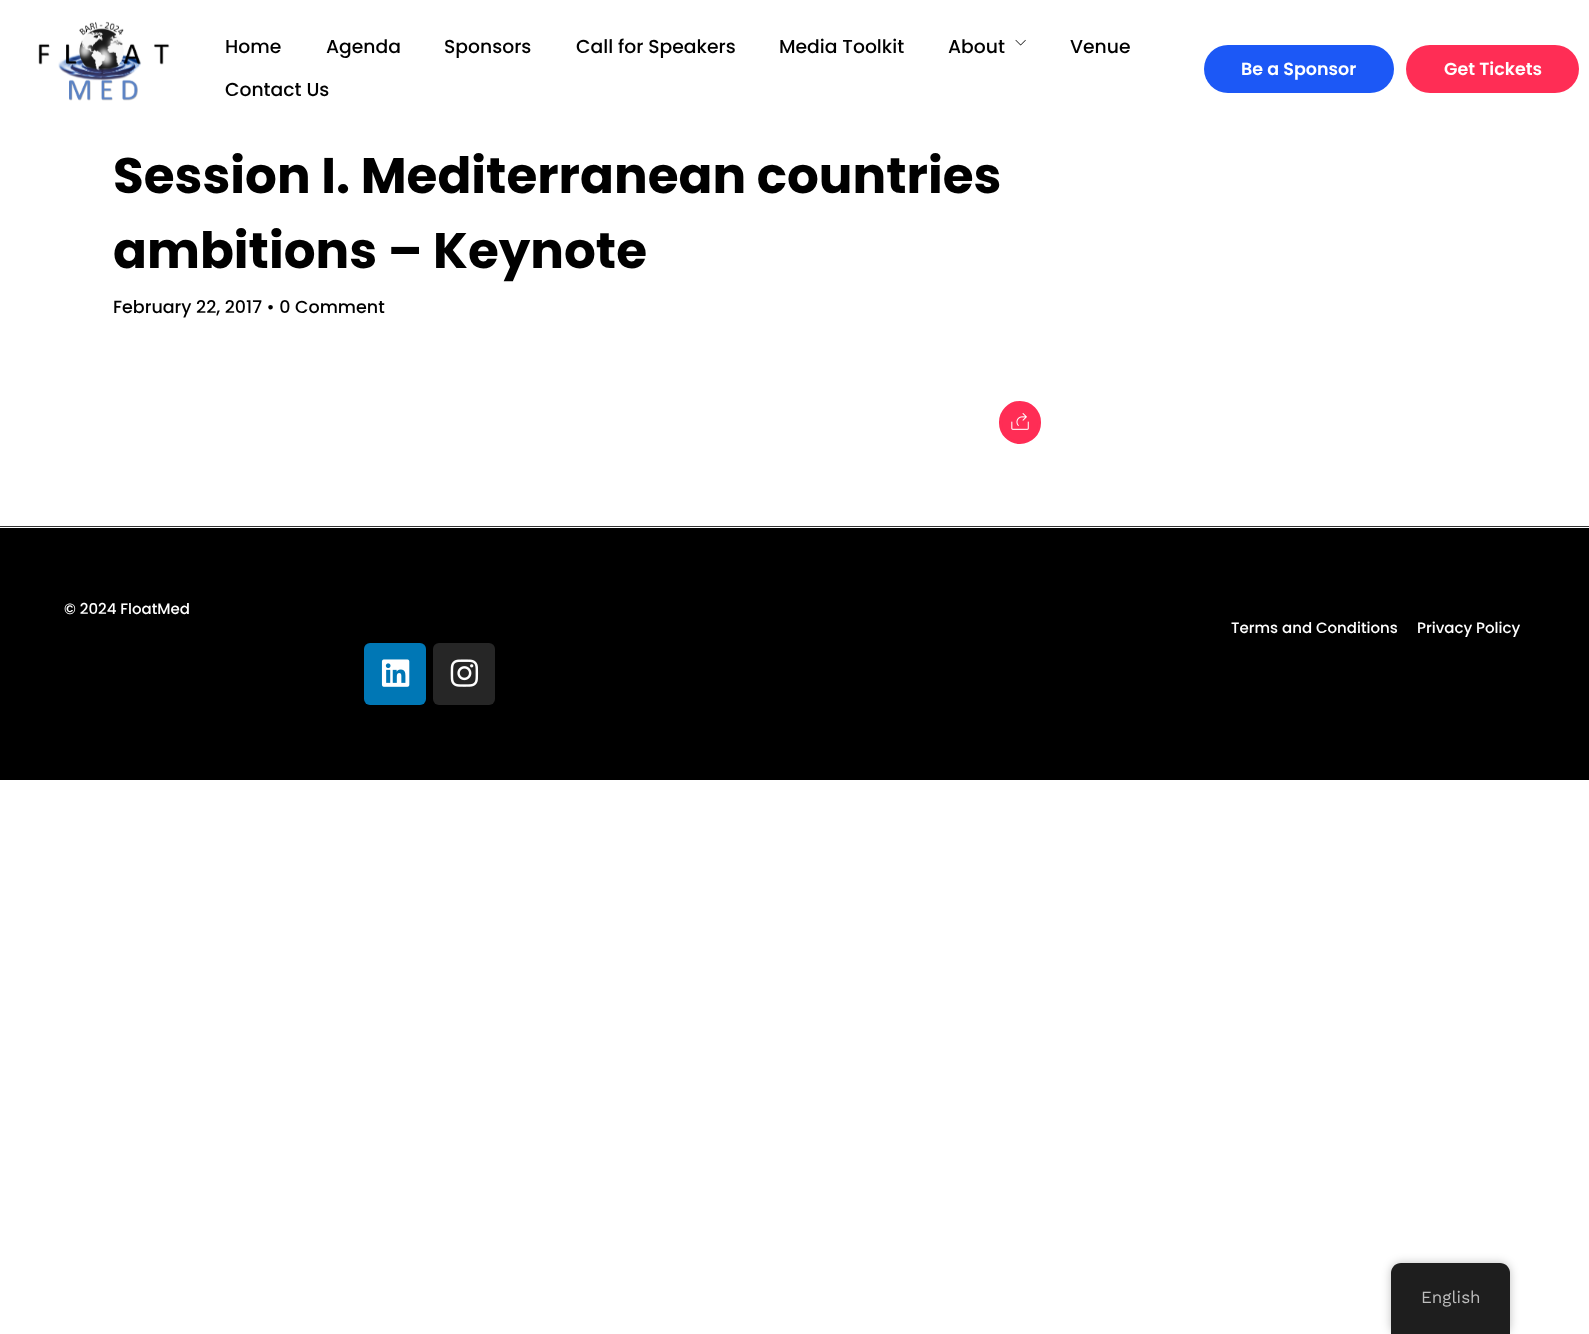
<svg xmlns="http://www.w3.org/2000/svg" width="1589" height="1334">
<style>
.a{font:500 18.75px Poppins;fill:#000}
.b{font:600 17.5px Poppins;fill:#fff}
.c{font:bold 50px Poppins;fill:#000}
.d{font:500 17.5px Poppins;fill:#000}
.e{font:500 15px Poppins;fill:#fff}
.f{font:17px Work Sans;fill:#bdbdbd}
</style>
<rect width="100%" height="100%" fill="#fff"/>
<image href="1.png" x="38" y="21" width="132" height="80"/>
<image href="2.png" x="1015" y="39" width="11" height="7"/>
<rect fill="#1c58f6" x="1204" y="45" width="190" height="48" rx="24"/>
<rect fill="#ff2d55" x="1406" y="45" width="173" height="48" rx="24"/>
<rect fill="#ff2d55" stroke="#ff2d55" stroke-width="3" x="1000.5" y="402.5" width="39" height="40" rx="19.5"/>
<image href="3.png" x="1011" y="413" width="18" height="17"/>
<path fill="#000" d="M0 528h1589v252H0z"/>
<path fill="#333" d="M0 526h1589v1H0z"/>
<rect fill="#0077b5" x="364" y="643" width="62" height="62" rx="6"/>
<image href="4.png" x="381" y="659" width="29" height="28"/>
<rect fill="#262626" x="433" y="643" width="62" height="62" rx="6"/>
<image href="5.png" x="450" y="659" width="29" height="28"/>
<rect fill="#00000040" filter="blur(5px)" x="1391" y="1263" width="119" height="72" rx="10"/>
<path fill="#1e1e1e" d="M1401 1263h99c5.5 0 10 4.5 10 10v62h-119v-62c0-5.5 4.5-10 10-10z"/>
<text class="a" x="225" y="53">Home</text>
<text class="a" x="326" y="53">Agenda</text>
<text class="a" x="444" y="53">Sponsors</text>
<text class="a" x="576" y="53">Call for Speakers</text>
<text class="a" x="779" y="53">Media Toolkit</text>
<text class="a" x="948" y="53">About</text>
<text class="a" x="1070" y="53">Venue</text>
<text class="a" x="225" y="96">Contact Us</text>
<text class="b" x="1241" y="75">Be a Sponsor</text>
<text class="b" x="1444" y="75">Get Tickets</text>
<text class="c" x="113" y="193">Session I. Mediterranean countries</text>
<text class="c" x="113" y="268">ambitions – Keynote</text>
<text class="d" x="113" y="313">February 22, 2017 • 0 Comment</text>
<text class="e" x="64" y="614">© 2024 FloatMed</text>
<text class="e" x="1231" y="633">Terms and Conditions</text>
<text class="e" x="1417" y="633">Privacy Policy</text>
<text class="f" x="1421" y="1303">English</text>
</svg>
